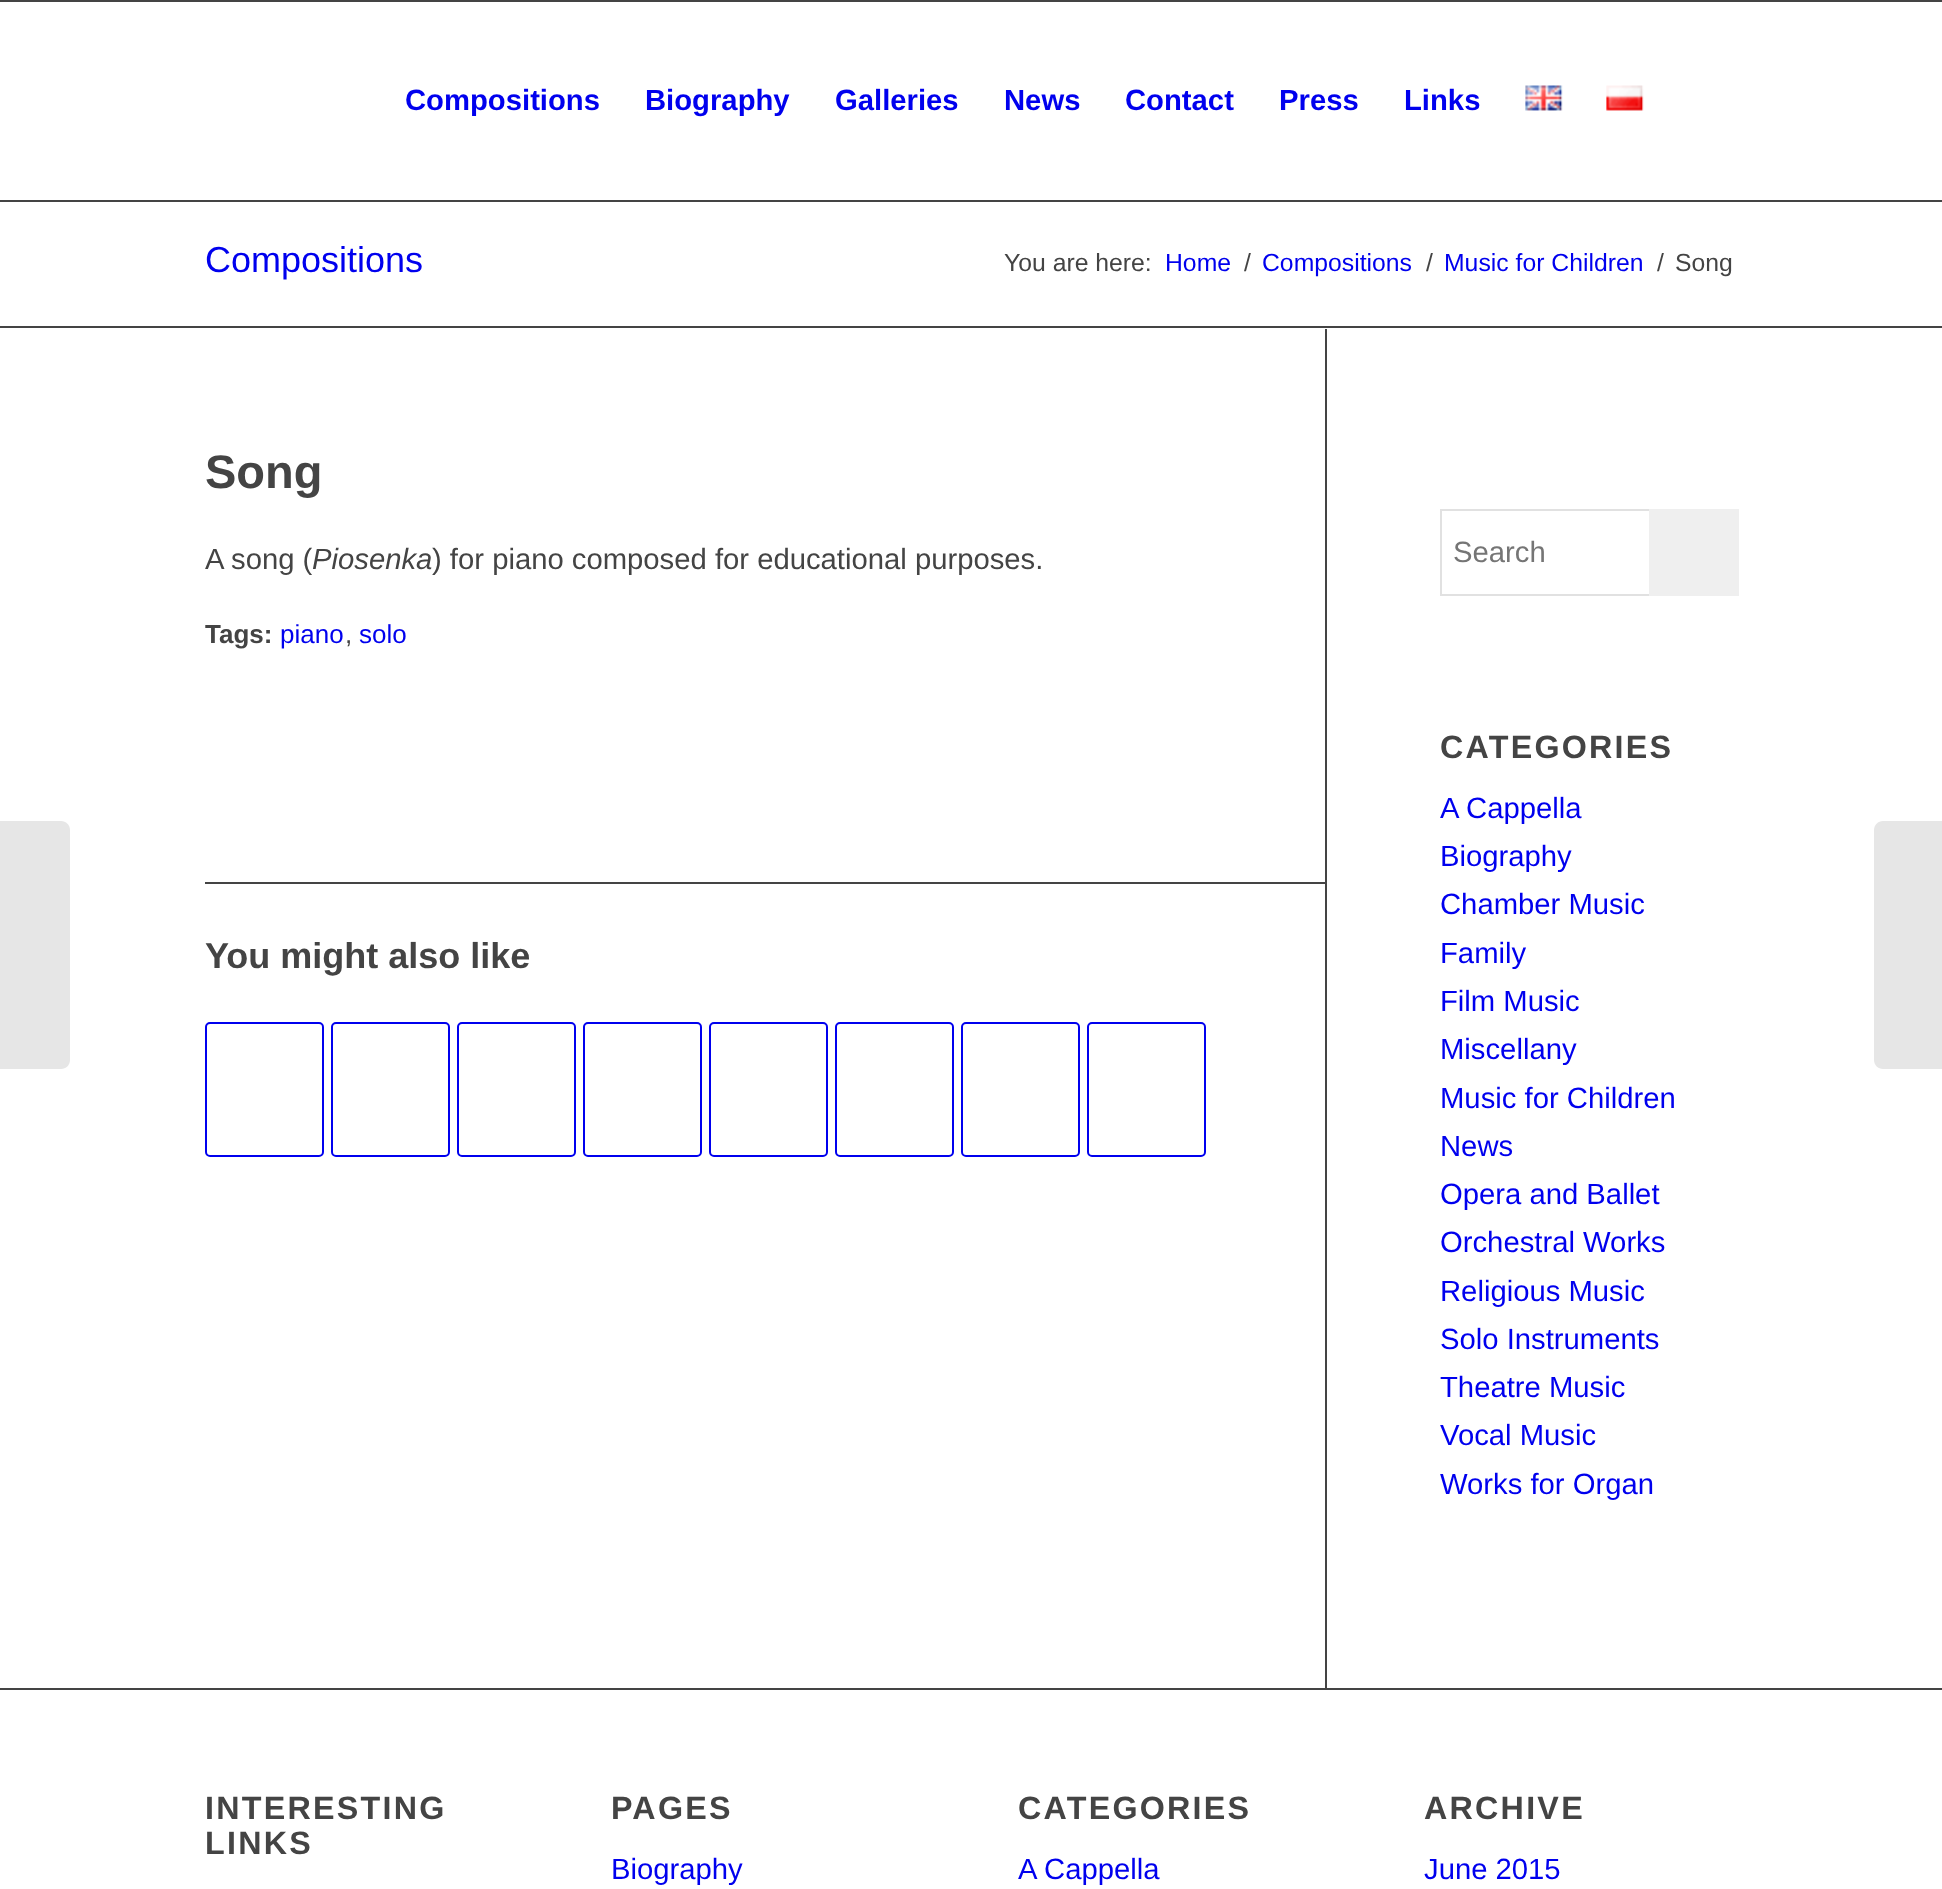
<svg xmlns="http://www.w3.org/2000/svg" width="1942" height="1889">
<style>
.a{font:bold 29.25px Liberation Sans;fill:#00e}
.b{font:36px Liberation Sans;fill:#00e}
.c{font:24.75px Liberation Sans;fill:#444}
.d{font:24.75px Liberation Sans;fill:#00e}
.e{font:bold 47px Liberation Sans;fill:#444}
.f{font:29.25px Liberation Sans;fill:#444}
.g{font:italic 29.25px Liberation Sans;fill:#444}
.h{font:bold 26px Liberation Sans;fill:#444}
.i{font:26px Liberation Sans;fill:#00e}
.j{font:26px Liberation Sans;fill:#444}
.k{font:bold 36px Liberation Sans;fill:#444}
.l{font:29.25px Liberation Sans;fill:#757575}
.m{font:bold 32.25px Liberation Sans;letter-spacing:2.25px;fill:#444}
.n{font:29.25px Liberation Sans;fill:#00e}
</style>
<rect width="100%" height="100%" fill="#fff"/>
<path fill="#444" d="M0 0h1942v2H0z"/>
<path fill="#444" d="M0 200h1942v2H0z"/>
<image href="1.png" x="1525" y="85" width="38" height="26"/>
<image href="2.png" x="1606" y="85" width="38" height="26"/>
<path fill="#e6e6e6" d="M0 821h61c5 0 9 4 9 9v230c0 5-4 9-9 9h-61z"/>
<path fill="#444" d="M0 326h1942v2H0z"/>
<path fill="#444" d="M205 882h1120v2H205z"/>
<rect fill="none" stroke="#00e" stroke-width="2" x="206" y="1023" width="117" height="133" rx="4"/>
<rect fill="none" stroke="#00e" stroke-width="2" x="332" y="1023" width="117" height="133" rx="4"/>
<rect fill="none" stroke="#00e" stroke-width="2" x="458" y="1023" width="117" height="133" rx="4"/>
<rect fill="none" stroke="#00e" stroke-width="2" x="584" y="1023" width="117" height="133" rx="4"/>
<rect fill="none" stroke="#00e" stroke-width="2" x="710" y="1023" width="117" height="133" rx="4"/>
<rect fill="none" stroke="#00e" stroke-width="2" x="836" y="1023" width="117" height="133" rx="4"/>
<rect fill="none" stroke="#00e" stroke-width="2" x="962" y="1023" width="117" height="133" rx="4"/>
<rect fill="none" stroke="#00e" stroke-width="2" x="1088" y="1023" width="117" height="133" rx="4"/>
<path fill="#444" d="M1325 329h2v1359H1325z"/>
<path fill="none" stroke="#e1e1e1" stroke-width="2" d="M1441 510h297v85H1441z"/>
<path fill="#efefef" d="M1649 509h90v87H1649z"/>
<path fill="#444" d="M0 1688h1942v2H0z"/>
<path fill="#e6e6e6" d="M1883 821h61v248h-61c-5 0-9-4-9-9v-230c0-5 4-9 9-9z"/>
<text class="a" x="405" y="110">Compositions</text>
<text class="a" x="645" y="110">Biography</text>
<text class="a" x="835" y="110">Galleries</text>
<text class="a" x="1004" y="110">News</text>
<text class="a" x="1125" y="110">Contact</text>
<text class="a" x="1279" y="110">Press</text>
<text class="a" x="1404" y="110">Links</text>
<text class="b" x="205" y="272">Compositions</text>
<text class="c" x="1004" y="271">You are here:</text>
<text class="d" x="1165" y="271">Home</text>
<text class="c" x="1244" y="271">/</text>
<text class="d" x="1262" y="271">Compositions</text>
<text class="c" x="1426" y="271">/</text>
<text class="d" x="1444" y="271">Music for Children</text>
<text class="c" x="1657" y="271">/</text>
<text class="c" x="1675" y="271">Song</text>
<text class="e" x="205" y="488">Song</text>
<text class="f" x="205" y="569">A song (</text>
<text class="g" x="312" y="569">Piosenka</text>
<text class="f" x="432" y="569">) for piano composed for educational purposes.</text>
<text class="h" x="205" y="643">Tags:</text>
<text class="i" x="280" y="643">piano</text>
<text class="j" x="345" y="643">,</text>
<text class="i" x="359" y="643">solo</text>
<text class="k" x="205" y="968">You might also like</text>
<text class="l" x="1453" y="562">Search</text>
<text class="m" x="1440" y="758">CATEGORIES</text>
<text class="n" x="1440" y="818">A Cappella</text>
<text class="n" x="1440" y="866">Biography</text>
<text class="n" x="1440" y="914">Chamber Music</text>
<text class="n" x="1440" y="963">Family</text>
<text class="n" x="1440" y="1011">Film Music</text>
<text class="n" x="1440" y="1059">Miscellany</text>
<text class="n" x="1440" y="1108">Music for Children</text>
<text class="n" x="1440" y="1156">News</text>
<text class="n" x="1440" y="1204">Opera and Ballet</text>
<text class="n" x="1440" y="1252">Orchestral Works</text>
<text class="n" x="1440" y="1301">Religious Music</text>
<text class="n" x="1440" y="1349">Solo Instruments</text>
<text class="n" x="1440" y="1397">Theatre Music</text>
<text class="n" x="1440" y="1445">Vocal Music</text>
<text class="n" x="1440" y="1494">Works for Organ</text>
<text class="m" x="205" y="1819">INTERESTING</text>
<text class="m" x="205" y="1854">LINKS</text>
<text class="m" x="611" y="1819">PAGES</text>
<text class="n" x="611" y="1879">Biography</text>
<text class="m" x="1018" y="1819">CATEGORIES</text>
<text class="n" x="1018" y="1879">A Cappella</text>
<text class="m" x="1424" y="1819">ARCHIVE</text>
<text class="n" x="1424" y="1879">June 2015</text>
</svg>
